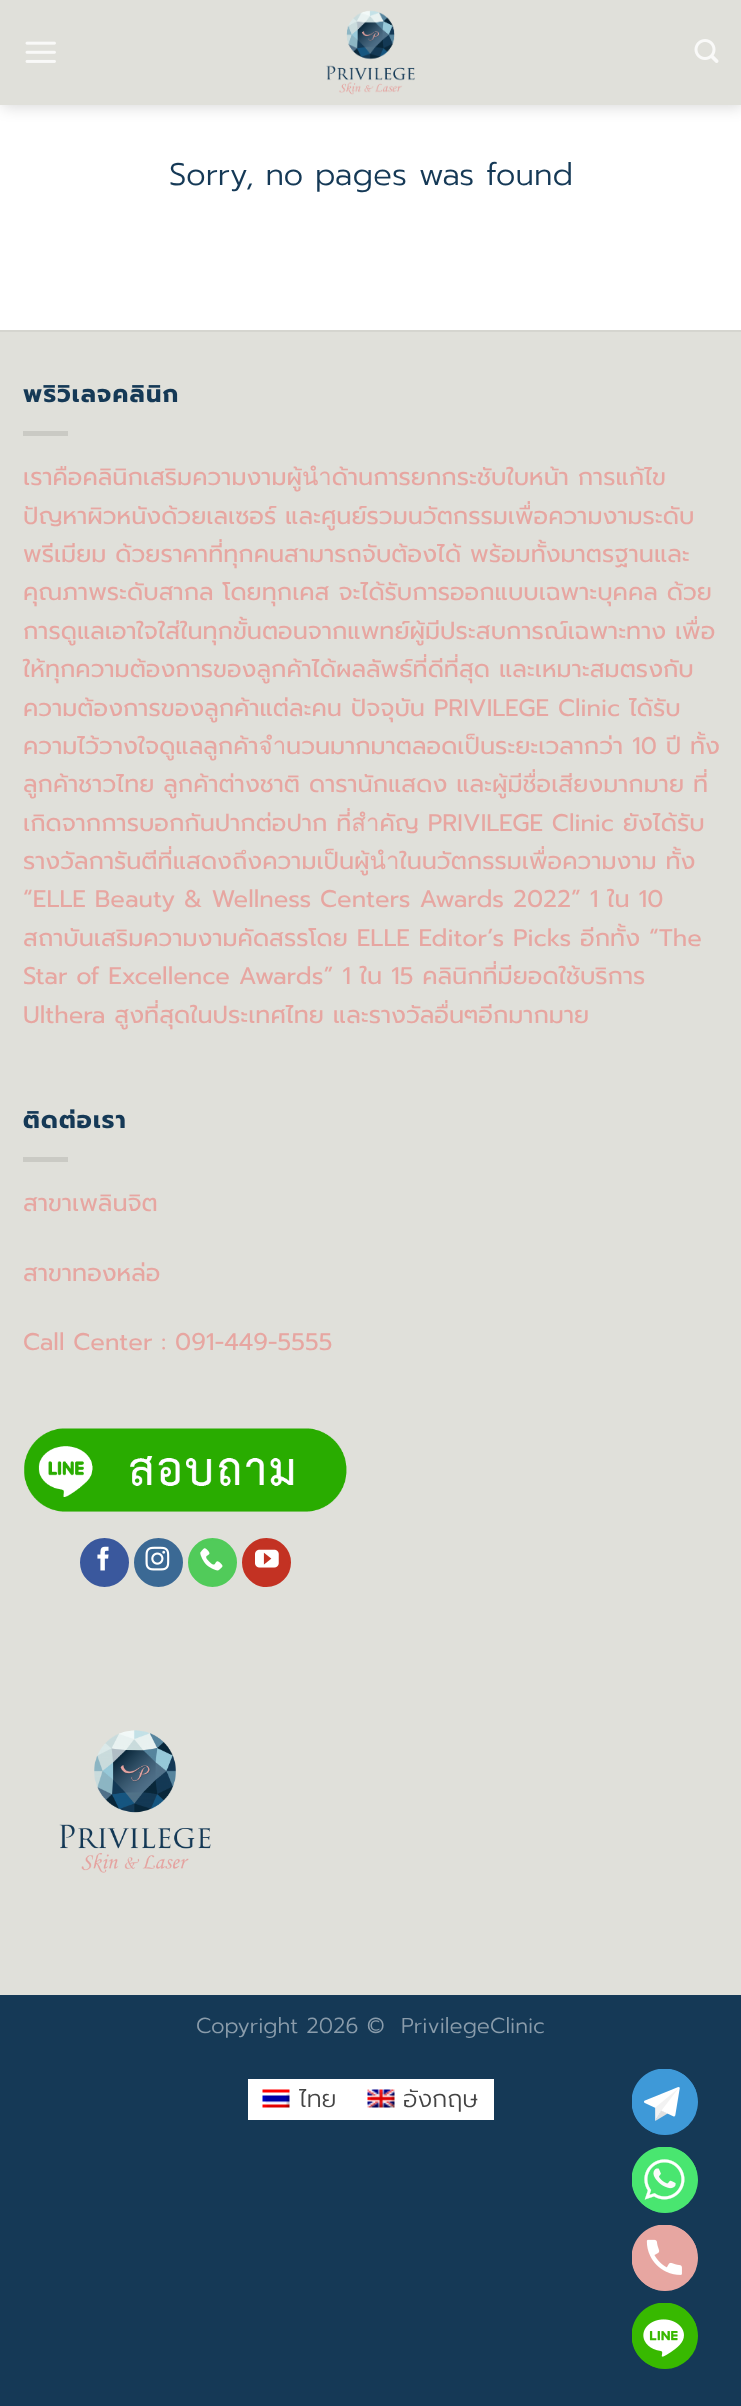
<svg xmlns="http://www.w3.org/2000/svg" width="741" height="2406">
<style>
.a{font:300 31.25px Prompt;fill:#153956}
.b{font:bold 24px Prompt;letter-spacing:1.25px;fill:#153956}
.c{font:24px Prompt;fill:#e7a6a1}
.d{font:300 21.6px Prompt;fill:#8a9cab}
.e{font:300 24px Prompt;fill:#444}
</style>
<rect width="100%" height="100%" fill="#153956"/>
<path fill="#fff" d="M0 105h741v225H0z"/>
<path fill="#00000026" filter="blur(7.5px)" d="M2 2h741v105H2z"/>
<path fill="#e0e0da" d="M0 0h741v105H0z"/>
<image href="1.png" x="25" y="41" width="31" height="22"/>
<image href="2.png" x="326" y="10" width="89" height="85"/>
<image href="3.png" x="694" y="39" width="25" height="24"/>
<path fill="#e0e0da" d="M0 332h741v1663H0z"/>
<path fill="#d5d5cf" d="M0 330h741v2H0z"/>
<path fill="#cacac4" d="M23 431h45v5H23z"/>
<path fill="#cacac4" d="M23 1157h45v5H23z"/>
<image href="4.png" x="24" y="1428" width="323" height="84"/>
<circle fill="#3a589d" stroke="#3a589d" stroke-width="2" cx="104.5" cy="1562.5" r="23.5"/>
<image href="5.png" x="97" y="1546" width="12" height="25"/>
<circle fill="#3b6994" stroke="#3b6994" stroke-width="2" cx="158.5" cy="1562.5" r="23.5"/>
<image href="6.png" x="145" y="1546" width="25" height="25"/>
<circle fill="#51cb5a" stroke="#51cb5a" stroke-width="2" cx="212.5" cy="1562.5" r="23.5"/>
<image href="7.png" x="200" y="1548" width="23" height="23"/>
<circle fill="#c33223" stroke="#c33223" stroke-width="2" cx="266.5" cy="1562.5" r="23.5"/>
<image href="8.png" x="255" y="1549" width="24" height="19"/>
<image href="9.png" x="59" y="1730" width="152" height="143"/>
<path fill="#fff" d="M248 2079h246v41H248z"/>
<image href="10.png" x="262" y="2089" width="28" height="19"/>
<image href="11.png" x="367" y="2089" width="28" height="19"/>
<circle fill="#3e99d8" cx="665" cy="2102" r="33"/>
<image href="12.png" x="632" y="2069" width="66" height="66"/>
<circle fill="#49e670" cx="665" cy="2180" r="33"/>
<image href="13.png" x="632" y="2147" width="66" height="66"/>
<circle fill="#e7a6a1" cx="665" cy="2258" r="33"/>
<image href="14.png" x="632" y="2225" width="66" height="66"/>
<circle fill="#38b900" cx="665" cy="2336" r="33"/>
<image href="15.png" x="632" y="2303" width="66" height="66"/>
<text class="a" x="169" y="185">Sorry, no pages was found</text>
<text class="b" x="23" y="402">พริวิเลจคลินิก</text>
<text class="c" x="23" y="485">เราคือคลินิกเสริมความงามผู้นำด้านการยกกระชับใบหน้า การแก้ไข</text>
<text class="c" x="23" y="524">ปัญหาผิวหนังด้วยเลเซอร์ และศูนย์รวมนวัตกรรมเพื่อความงามระดับ</text>
<text class="c" x="23" y="562">พรีเมียม ด้วยราคาที่ทุกคนสามารถจับต้องได้ พร้อมทั้งมาตรฐานและ</text>
<text class="c" x="23" y="600">คุณภาพระดับสากล โดยทุกเคส จะได้รับการออกแบบเฉพาะบุคคล ด้วย</text>
<text class="c" x="23" y="639">การดูแลเอาใจใส่ในทุกขั้นตอนจากแพทย์ผู้มีประสบการณ์เฉพาะทาง เพื่อ</text>
<text class="c" x="23" y="677">ให้ทุกความต้องการของลูกค้าได้ผลลัพธ์ที่ดีที่สุด และเหมาะสมตรงกับ</text>
<text class="c" x="23" y="716">ความต้องการของลูกค้าแต่ละคน ปัจจุบัน PRIVILEGE Clinic ได้รับ</text>
<text class="c" x="23" y="754">ความไว้วางใจดูแลลูกค้าจำนวนมากมาตลอดเป็นระยะเวลากว่า 10 ปี ทั้ง</text>
<text class="c" x="23" y="792">ลูกค้าชาวไทย ลูกค้าต่างชาติ ดารานักแสดง และผู้มีชื่อเสียงมากมาย ที่</text>
<text class="c" x="23" y="831">เกิดจากการบอกกันปากต่อปาก ที่สำคัญ PRIVILEGE Clinic ยังได้รับ</text>
<text class="c" x="23" y="869">รางวัลการันตีที่แสดงถึงความเป็นผู้นำในนวัตกรรมเพื่อความงาม ทั้ง</text>
<text class="c" x="23" y="907">“ELLE Beauty &amp; Wellness Centers Awards 2022” 1 ใน 10</text>
<text class="c" x="23" y="946">สถาบันเสริมความงามคัดสรรโดย ELLE Editor’s Picks อีกทั้ง “The</text>
<text class="c" x="23" y="984">Star of Excellence Awards” 1 ใน 15 คลินิกที่มียอดใช้บริการ</text>
<text class="c" x="23" y="1023">Ulthera สูงที่สุดในประเทศไทย และรางวัลอื่นๆอีกมากมาย</text>
<text class="b" x="23" y="1128">ติดต่อเรา</text>
<text class="c" x="23" y="1211">สาขาเพลินจิต</text>
<text class="c" x="23" y="1281">สาขาทองหล่อ</text>
<text class="c" x="23" y="1350">Call Center : 091-449-5555</text>
<text class="d" xml:space="preserve" x="196" y="2033">Copyright 2026 ©  PrivilegeClinic</text>
<text class="e" x="299" y="2107">ไทย</text>
<text class="e" x="403" y="2107">อังกฤษ</text>
</svg>
